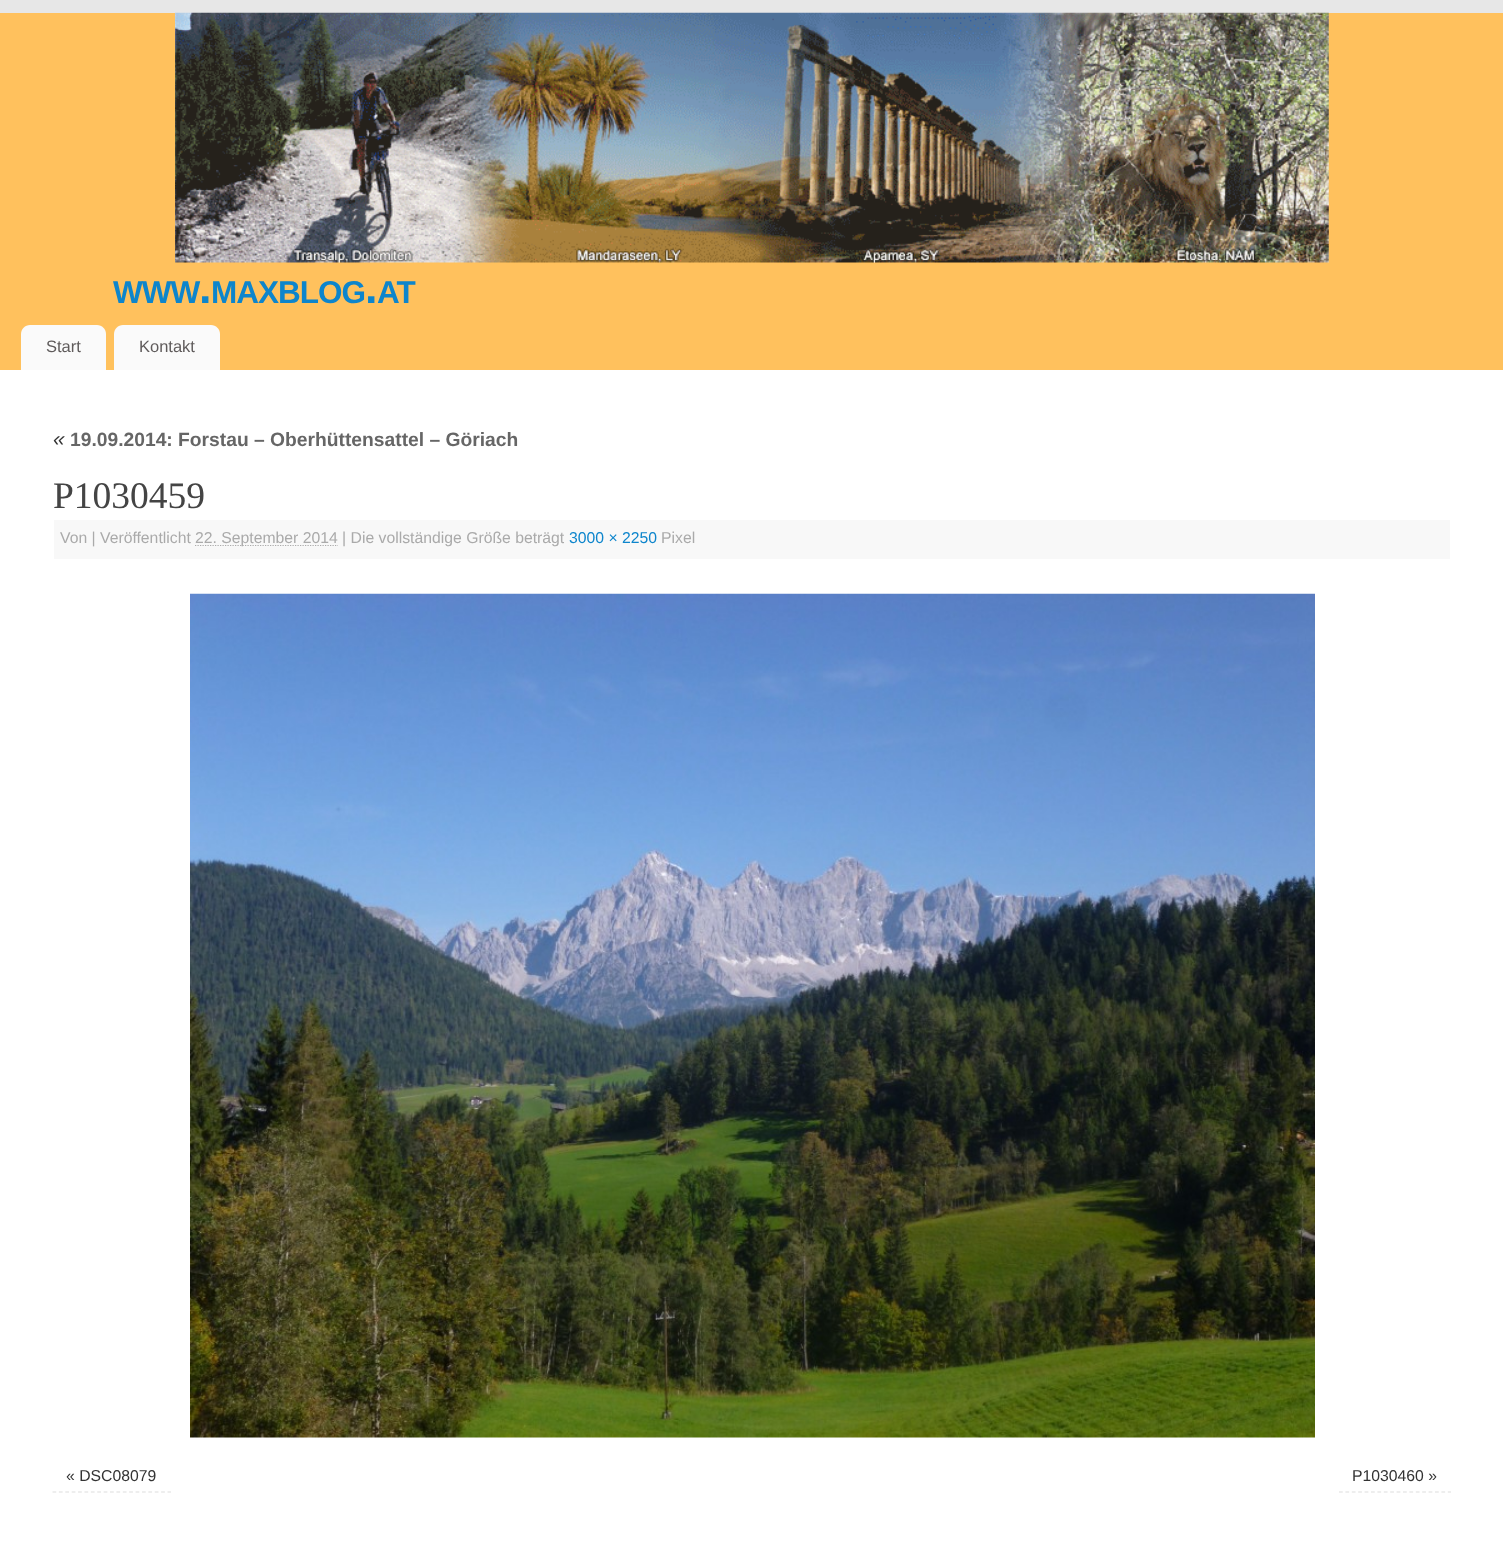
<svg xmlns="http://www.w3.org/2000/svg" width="1503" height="1544">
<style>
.a{font:bold 31.5px Liberation Sans;letter-spacing:-1px;fill:#0d85cc}
.b{font:bold 45px Liberation Sans;letter-spacing:-1px;fill:#0d85cc}
.c{font:16.5px Liberation Sans;fill:#5f5b5b}
.d{font:italic 21px Liberation Sans;fill:#333}
.e{font:bold 19.25px Liberation Sans;fill:#666}
.f{font:37.5px Liberation Serif;fill:#444}
.g{font:15.75px Liberation Sans;fill:#aaa}
.h{font:15.75px Liberation Sans;fill:#0d85cc}
.i{font:15.75px Liberation Sans;fill:#333}
</style>
<rect width="100%" height="100%" fill="#e7e7e7"/>
<path fill="#ffc15d" d="M0 13h1503v357H0z"/>
<image href="1.png" x="175" y="12" width="1154" height="251"/>
<path fill="#fafafa" d="M30 325h67c5 0 9 4 9 9v36h-85v-36c0-5 4-9 9-9z"/>
<path fill="#fafafa" d="M123 325h88c5 0 9 4 9 9v36h-106v-36c0-5 4-9 9-9z"/>
<path fill="#fff" d="M0 370h1503v1174H0z"/>
<path fill="#f8f8f8" d="M54 520h1396v39H54z"/>
<path fill="none" stroke="#aaa" stroke-width="1.2" stroke-dasharray="1.25 1.25" d="M195 545.5h143"/>
<image href="2.png" x="190" y="593" width="1125" height="845"/>
<path fill="none" stroke="#ddd" stroke-width="1.2" stroke-dasharray="3.75 2.64" d="M52.5 1492h118.5"/>
<path fill="none" stroke="#ddd" stroke-width="1.2" stroke-dasharray="3.75 2.65" d="M1339 1492h112"/>
<text class="a" x="113" y="303">WWW</text>
<text class="b" x="199" y="303">.</text>
<text class="a" x="211" y="303">MAXBLOG</text>
<text class="b" x="365" y="303">.</text>
<text class="a" x="377" y="303">AT</text>
<text class="c" x="46" y="352">Start</text>
<text class="c" x="139" y="352">Kontakt</text>
<text class="d" x="53" y="446">«</text>
<text class="e" x="70" y="446">19.09.2014: Forstau – Oberhüttensattel – Göriach</text>
<text class="f" x="53" y="508">P1030459</text>
<text class="g" x="60" y="543">Von | Veröffentlicht</text>
<text class="g" x="195" y="543">22. September 2014 | Die vollständige Größe beträgt</text>
<text class="h" x="569" y="543">3000 × 2250</text>
<text class="g" x="661" y="543">Pixel</text>
<text class="i" x="66" y="1481">« DSC08079</text>
<text class="i" x="1352" y="1481">P1030460 »</text>
</svg>
